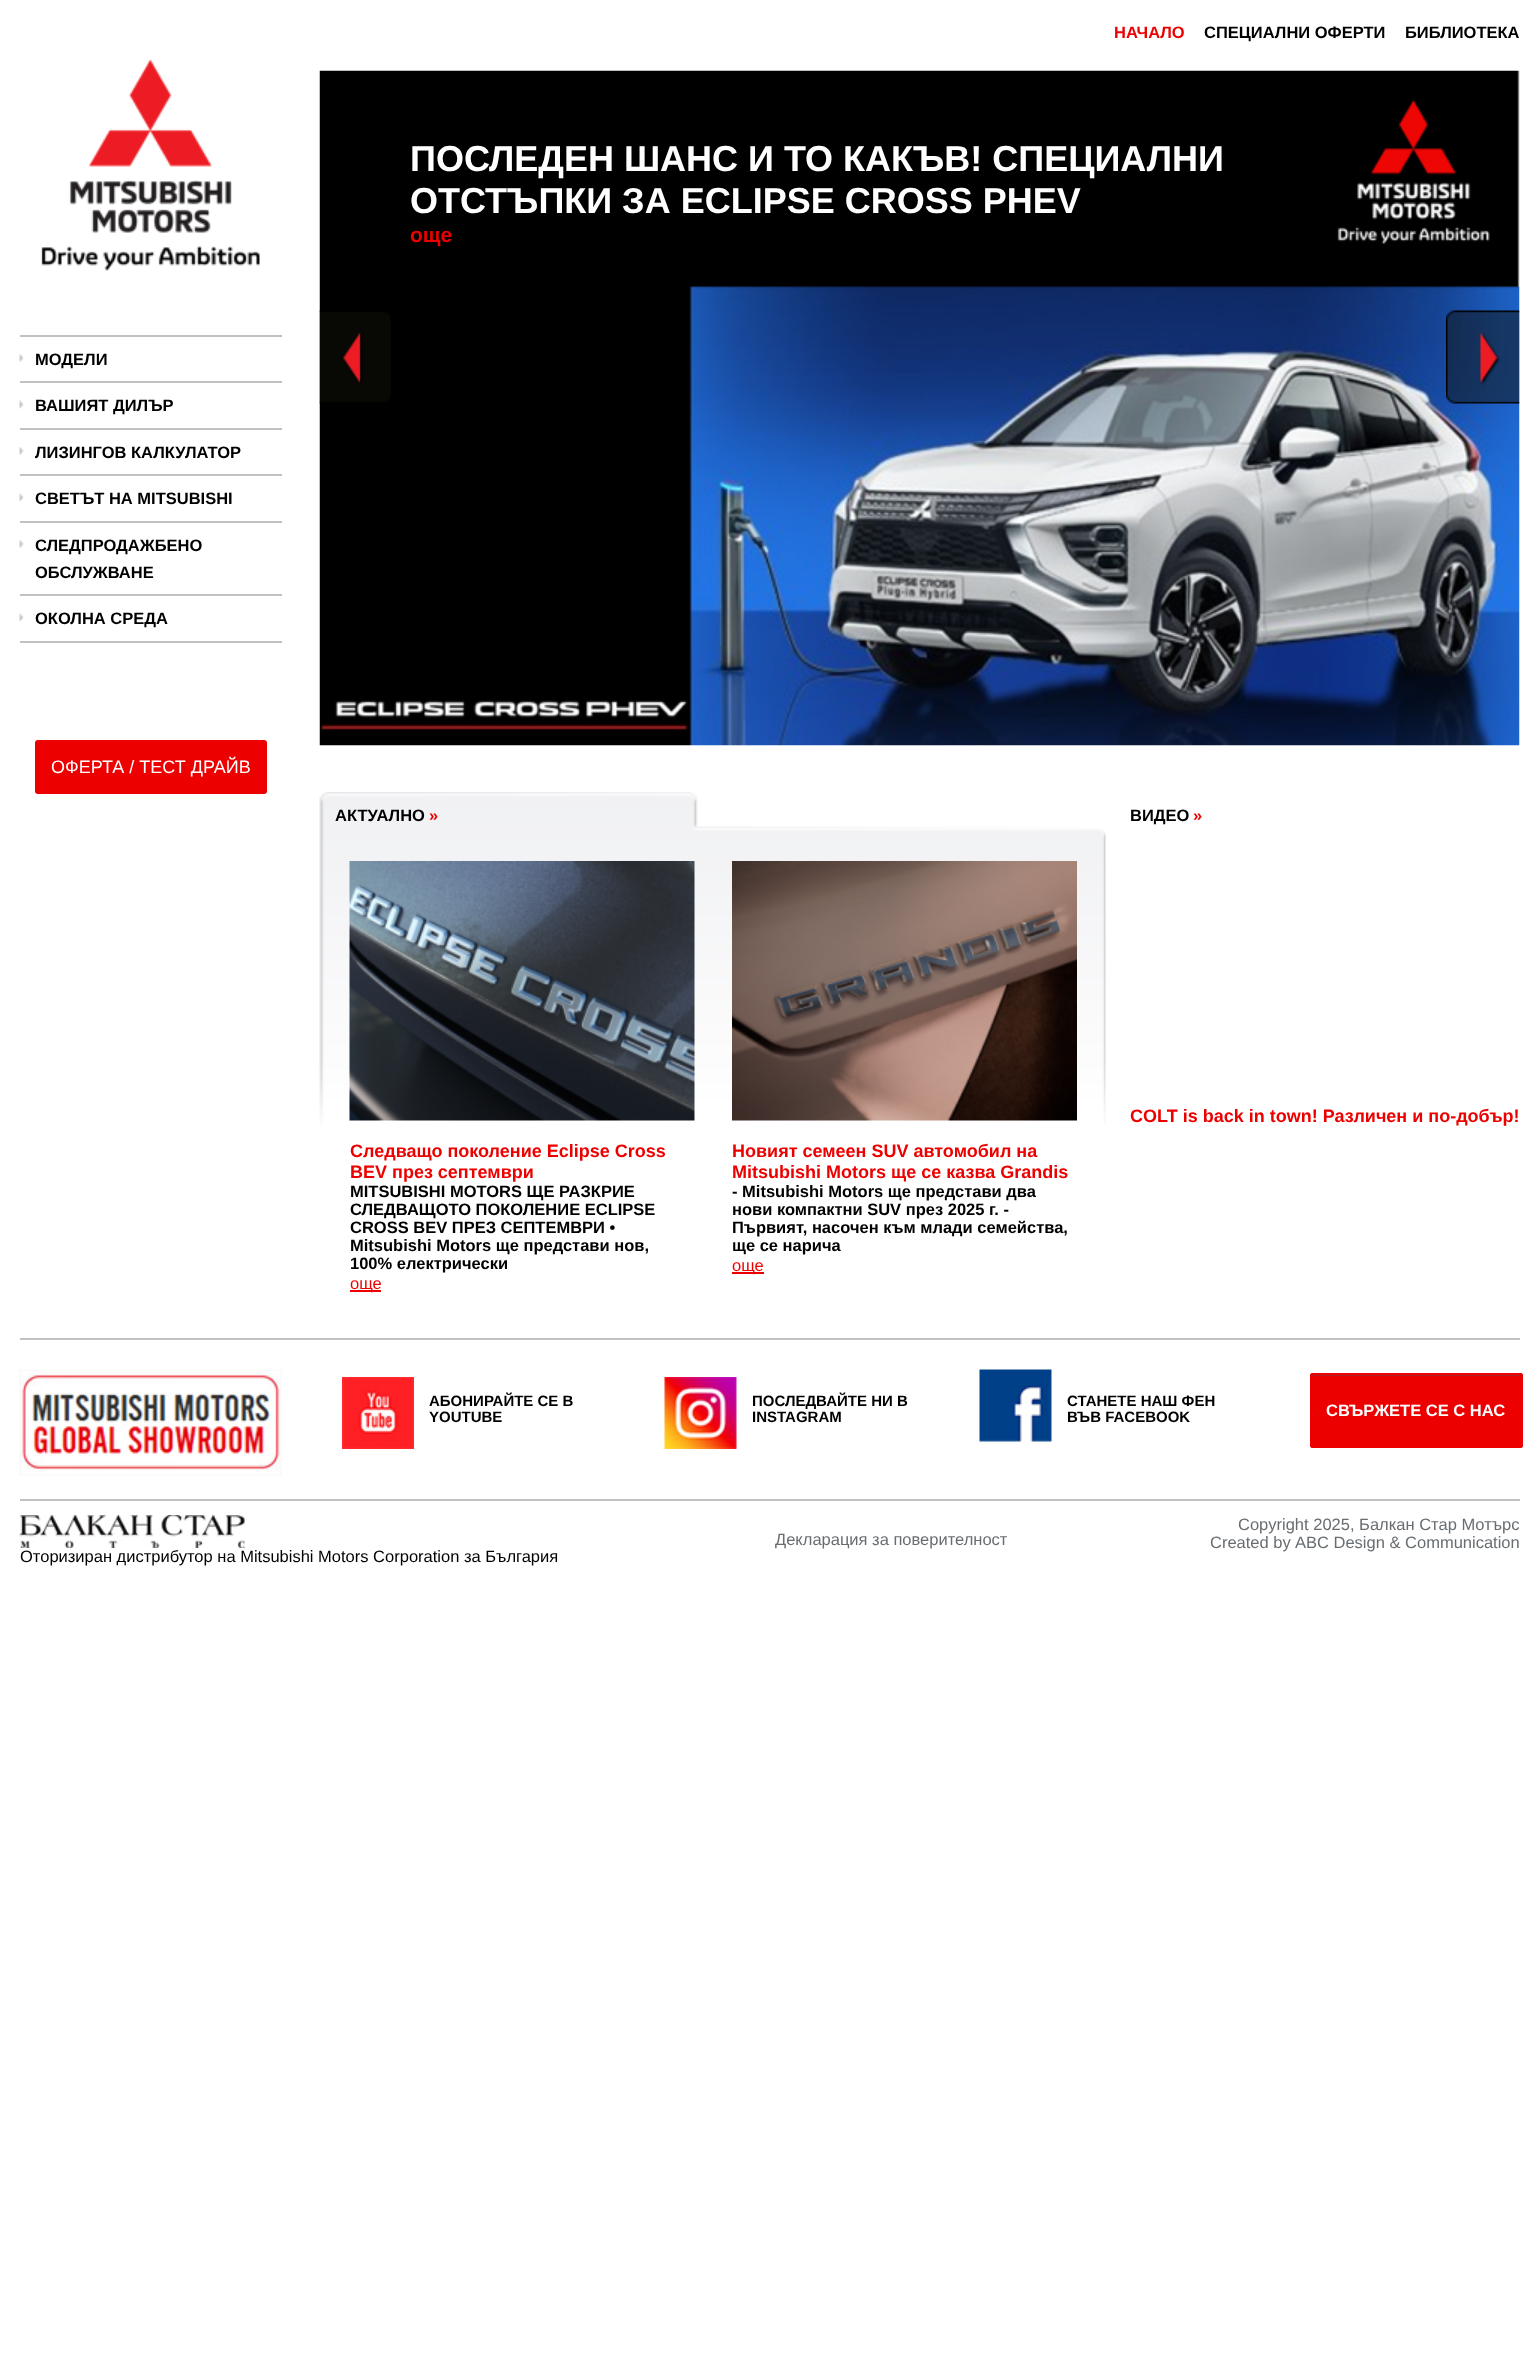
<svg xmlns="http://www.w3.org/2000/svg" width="1539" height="2376">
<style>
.a{font:bold 16.5px Liberation Sans;fill:#000}
.b{font:18px Liberation Sans;fill:#fff}
.c{font:bold 16.5px Liberation Sans;fill:#ed0000}
.d{font:bold 36px Liberation Sans;fill:#fff}
.e{font:bold 21px Liberation Sans;fill:#ed0000}
.f{font:bold 18px Liberation Sans;fill:#ed0000}
.g{font:16.5px Liberation Sans;fill:#ed0000}
.h{font:bold 15px Liberation Sans;fill:#000}
.i{font:bold 16.5px Liberation Sans;fill:#fff}
.j{font:16.5px Liberation Sans;fill:#686d71}
.k{font:16.5px Liberation Sans;fill:#000}
</style>
<rect width="100%" height="100%" fill="#fff"/>
<image href="1.png" x="41" y="59" width="219" height="212"/>
<path fill="#bfc2c4" d="M20 335h262v2H20z"/>
<image href="2.png" x="19" y="354" width="5" height="8"/>
<path fill="#bfc2c4" d="M20 381h262v2H20z"/>
<image href="3.png" x="19" y="400" width="5" height="9"/>
<path fill="#bfc2c4" d="M20 428h262v2H20z"/>
<image href="2.png" x="19" y="447" width="5" height="8"/>
<path fill="#bfc2c4" d="M20 474h262v2H20z"/>
<image href="3.png" x="19" y="493" width="5" height="9"/>
<path fill="#bfc2c4" d="M20 521h262v2H20z"/>
<image href="2.png" x="19" y="540" width="5" height="8"/>
<path fill="#bfc2c4" d="M20 594h262v2H20z"/>
<image href="3.png" x="19" y="613" width="5" height="9"/>
<path fill="#bfc2c4" d="M20 641h262v2H20z"/>
<rect fill="#ed0000" stroke="#ed0000" stroke-width="2" x="36" y="741" width="230" height="52" rx="2"/>
<image href="4.png" x="319" y="70" width="1201" height="676"/>
<image href="5.png" x="319" y="310" width="72" height="94"/>
<image href="6.png" x="1446" y="310" width="74" height="94"/>
<image href="7.png" x="319" y="792" width="787" height="333"/>
<image href="8.png" x="349" y="861" width="346" height="260"/>
<path fill="#ed0000" d="M350 1290h31v2H350z"/>
<image href="9.png" x="732" y="861" width="345" height="260"/>
<path fill="#ed0000" d="M732 1272h32v2H732z"/>
<path fill="#bfc2c4" d="M20 1338h1500v2H20z"/>
<image href="10.png" x="19" y="1369" width="263" height="107"/>
<image href="11.png" x="342" y="1377" width="72" height="72"/>
<image href="12.png" x="664" y="1377" width="73" height="72"/>
<image href="13.png" x="979" y="1369" width="73" height="73"/>
<rect fill="#ed0000" x="1310" y="1373" width="213" height="75" rx="3"/>
<path fill="#a22" d="M1312 1376h208l1 1c0-1 0-3-1-3h-208c-1 0-1 2-1 3z"/>
<rect fill="none" stroke="#ed0000" stroke-width="2" x="1311" y="1374" width="211" height="73" rx="2"/>
<path fill="#bfc2c4" d="M20 1499h1500v2H20z"/>
<image href="14.png" x="19" y="1515" width="226" height="33"/>
<text class="a" x="35" y="365">МОДЕЛИ</text>
<text class="a" x="35" y="411">ВАШИЯТ ДИЛЪР</text>
<text class="a" x="35" y="458">ЛИЗИНГОВ КАЛКУЛАТОР</text>
<text class="a" x="35" y="504">СВЕТЪТ НА MITSUBISHI</text>
<text class="a" x="35" y="551">СЛЕДПРОДАЖБЕНО</text>
<text class="a" x="35" y="578">ОБСЛУЖВАНЕ</text>
<text class="a" x="35" y="624">ОКОЛНА СРЕДА</text>
<text class="b" x="51" y="773">ОФЕРТА / ТЕСТ ДРАЙВ</text>
<text class="c" x="1114" y="38">НАЧАЛО</text>
<text class="a" x="1204" y="38">СПЕЦИАЛНИ ОФЕРТИ</text>
<text class="a" x="1405" y="38">БИБЛИОТЕКА</text>
<text class="d" x="410" y="171">ПОСЛЕДЕН ШАНС И ТО КАКЪВ! СПЕЦИАЛНИ</text>
<text class="d" x="410" y="213">ОТСТЪПКИ ЗА ECLIPSE CROSS PHEV</text>
<text class="e" x="410" y="242">още</text>
<text class="a" x="335" y="821">АКТУАЛНО</text>
<text class="c" x="429" y="821">»</text>
<text class="f" x="350" y="1157">Следващо поколение Eclipse Cross</text>
<text class="f" x="350" y="1178">BEV през септември</text>
<text class="a" x="350" y="1197">MITSUBISHI MOTORS ЩЕ РАЗКРИЕ</text>
<text class="a" x="350" y="1215">СЛЕДВАЩОТО ПОКОЛЕНИЕ ECLIPSE</text>
<text class="a" x="350" y="1233">CROSS BEV ПРЕЗ СЕПТЕМВРИ •</text>
<text class="a" x="350" y="1251">Mitsubishi Motors ще представи нов,</text>
<text class="a" x="350" y="1269">100% електрически</text>
<text class="g" x="350" y="1289">още</text>
<text class="f" x="732" y="1157">Новият семеен SUV автомобил на</text>
<text class="f" x="732" y="1178">Mitsubishi Motors ще се казва Grandis</text>
<text class="a" x="732" y="1197">- Mitsubishi Motors ще представи два</text>
<text class="a" x="732" y="1215">нови компактни SUV през 2025 г. -</text>
<text class="a" x="732" y="1233">Първият, насочен към млади семейства,</text>
<text class="a" x="732" y="1251">ще се нарича</text>
<text class="g" x="732" y="1271">още</text>
<text class="a" x="1130" y="821">ВИДЕО</text>
<text class="c" x="1193" y="821">»</text>
<text class="f" x="1130" y="1122">COLT is back in town! Различен и по-добър!</text>
<text class="h" x="429" y="1406">АБОНИРАЙТЕ СЕ В</text>
<text class="h" x="429" y="1422">YOUTUBE</text>
<text class="h" x="752" y="1406">ПОСЛЕДВАЙТЕ НИ В</text>
<text class="h" x="752" y="1422">INSTAGRAM</text>
<text class="h" x="1067" y="1406">СТАНЕТЕ НАШ ФЕН</text>
<text class="h" x="1067" y="1422">ВЪВ FACEBOOK</text>
<text class="i" x="1326" y="1416">СВЪРЖЕТЕ СЕ С НАС</text>
<text class="j" x="775" y="1545">Декларация за поверителност</text>
<text class="j" x="1238" y="1530">Copyright 2025, Балкан Стар Мотърс</text>
<text class="j" x="1210" y="1548">Created by</text>
<text class="j" x="1295" y="1548">ABC Design &amp; Communication</text>
<text class="k" x="20" y="1562">Оторизиран дистрибутор на Mitsubishi Motors Corporation за България</text>
</svg>
